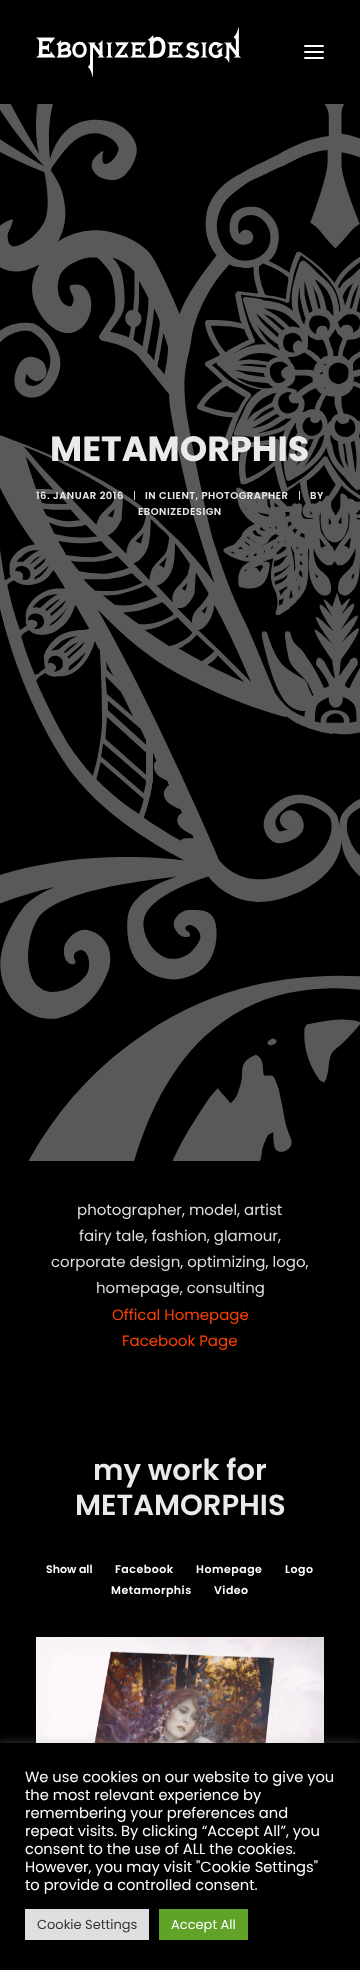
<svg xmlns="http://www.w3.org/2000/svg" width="360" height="1970">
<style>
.a{font:bold 35px Poppins;fill:#eaeaea}
.b{font:600 10px Poppins;letter-spacing:0.5px;fill:#eaeaea}
.c{font:10px Poppins;letter-spacing:0.5px;fill:#eaeaea}
.d{font:15px Poppins;fill:#ddd}
.e{font:15px Poppins;fill:#fc4100}
.f{font:600 29px Poppins;fill:#eaeaea}
.g{font:600 11px Poppins;fill:#fff}
.h{font:600 11px Poppins;letter-spacing:0.5px;fill:#fff}
.i{font:14.7px Poppins;fill:#fff}
.j{font:13px Poppins;fill:#333}
.k{font:13px Poppins;fill:#fff}
</style>
<rect width="100%" height="100%" fill="#000"/>
<image href="1.png" x="36" y="27" width="205" height="50"/>
<rect fill="#fff" x="304" y="51" width="20" height="2" rx="1"/>
<rect fill="#fff" x="304" y="45" width="20" height="2" rx="1"/>
<rect fill="#fff" x="304" y="57" width="20" height="2" rx="1"/>
<image href="2.png" x="0" y="104" width="360" height="1057"/>
<image href="3.png" x="36" y="1637" width="288" height="106"/>
<path fill="#acabab4d" filter="blur(5px)" d="M0 1742h360v227H0z"/>
<path fill="#000" d="M0 1743h360v227H0z"/>
<path fill="#dedfe0" d="M25 1909h124v31H25z"/>
<path fill="#61a229" d="M159 1909h89v31H159z"/>
<text class="a" x="50" y="461">METAMORPHIS</text>
<text class="b" x="36" y="499">16. JANUAR 2016</text>
<text class="c" x="133" y="499">|</text>
<text class="b" x="145" y="499">IN CLIENT, PHOTOGRAPHER</text>
<text class="c" x="298" y="499">|</text>
<text class="b" x="310" y="499">BY</text>
<text class="b" x="138" y="515">EBONIZEDESIGN</text>
<text class="d" x="77" y="1215">photographer, model, artist</text>
<text class="d" x="79" y="1241">fairy tale, fashion, glamour,</text>
<text class="d" x="51" y="1267">corporate design, optimizing, logo,</text>
<text class="d" x="96" y="1293">homepage, consulting</text>
<text class="e" x="112" y="1320">Offical Homepage</text>
<text class="e" x="122" y="1346">Facebook Page</text>
<text class="f" x="93" y="1480">my work for</text>
<text class="f" x="75" y="1515">METAMORPHIS</text>
<text class="g" x="46" y="1573">Show all</text>
<text class="h" x="115" y="1573">Facebook</text>
<text class="h" x="196" y="1573">Homepage</text>
<text class="h" x="285" y="1573">Logo</text>
<text class="h" x="111" y="1594">Metamorphis</text>
<text class="h" x="214" y="1594">Video</text>
<text class="i" x="25" y="1782">We use cookies on our website to give you</text>
<text class="i" x="25" y="1800">the most relevant experience by</text>
<text class="i" x="25" y="1818">remembering your preferences and</text>
<text class="i" x="25" y="1836">repeat visits. By clicking “Accept All”, you</text>
<text class="i" x="25" y="1854">consent to the use of ALL the cookies.</text>
<text class="i" x="25" y="1872">However, you may visit "Cookie Settings"</text>
<text class="i" x="25" y="1890">to provide a controlled consent.</text>
<text class="j" x="37" y="1929">Cookie Settings</text>
<text class="k" x="171" y="1929">Accept All</text>
</svg>
